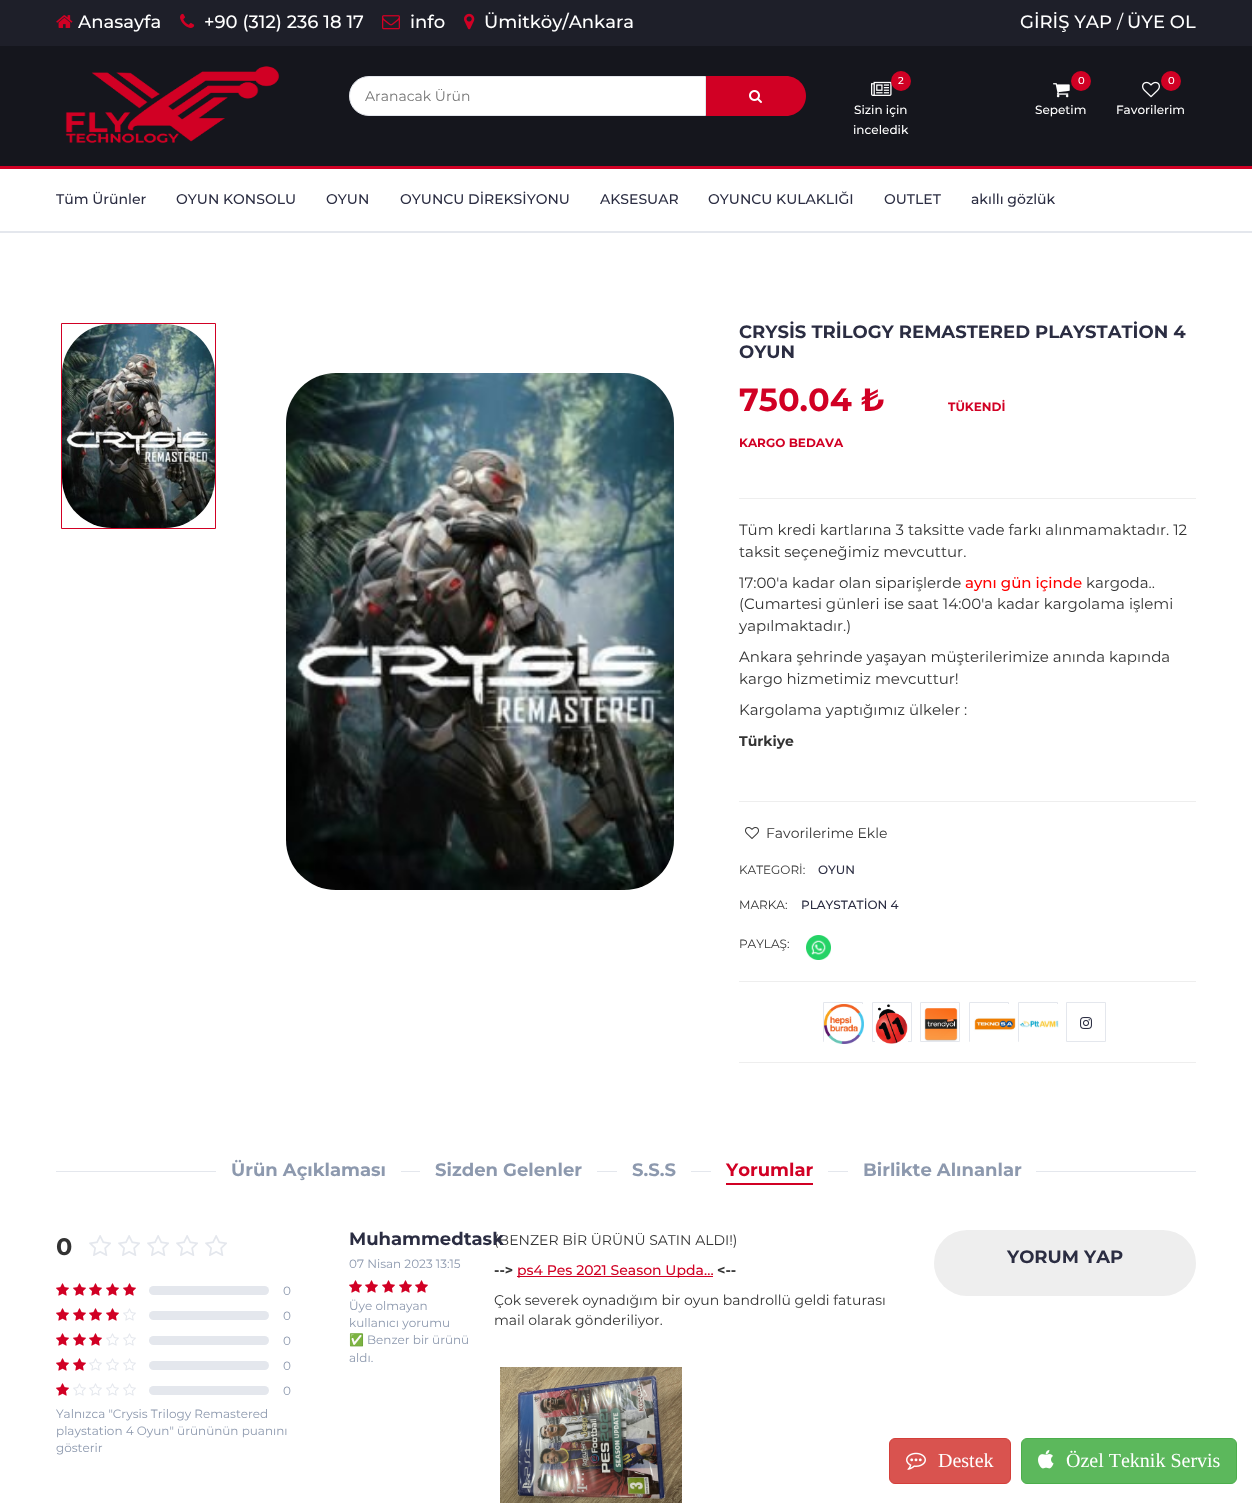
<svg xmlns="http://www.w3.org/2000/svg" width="1252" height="1509">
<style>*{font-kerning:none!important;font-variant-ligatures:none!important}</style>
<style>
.a{font:500 18px Montserrat;fill:#fff}
.b{font:18px Montserrat;fill:#fff}
.c{font:14px Montserrat;fill:#757575}
.d{font:500 10px Montserrat;fill:#fff}
.e{font:500 12px Montserrat;fill:#fff}
.f{font:500 14px Montserrat;fill:#2b2d42}
.g{font:bold 18px Montserrat;fill:#2b2d42}
.h{font:bold 32px Montserrat;fill:#d10024}
.i{font:bold 12px Montserrat;fill:#d10024}
.j{font:15px Montserrat;fill:#333}
.k{font:500 15px Montserrat;fill:#f00}
.l{font:bold 14px Montserrat;fill:#333}
.m{font:14px Montserrat;fill:#333}
.n{font:12px Montserrat;fill:#333}
.o{font:500 12px Montserrat;fill:#2b2d42}
.p{font:bold 18px Montserrat;fill:#8d99ae}
.q{font:bold 18px Montserrat;fill:#d10024}
.r{font:bold 24px Montserrat;fill:#333}
.s{font:12px Montserrat;fill:#8d99ae}
.t{font:12px Noto Color Emoji;fill:#8d99ae}
.u{font:500 14px Montserrat;fill:#d10024}
.v{font:20px Liberation Serif;fill:#fff}
</style>
<rect width="100%" height="100%" fill="#fff"/>
<path fill="#1e1f29" d="M0 0h1252v46H0z"/>
<image href="1.png" x="56" y="15" width="17" height="13"/>
<image href="2.png" x="180" y="13" width="15" height="15"/>
<image href="3.png" x="382" y="15" width="18" height="15"/>
<image href="4.png" x="464" y="13" width="11" height="17"/>
<path fill="#15161d" d="M0 46h1252v120H0z"/>
<image href="5.png" x="65" y="66" width="215" height="77"/>
<path fill="#fff" stroke="#e4e7ed" d="M369 76.5h336.5v39h-336.5c-11 0-19.5-8.5-19.5-19.5c0-11 8.5-19.5 19.5-19.5z"/>
<path fill="#d10024" d="M706 76h80c11 0 20 9 20 20c0 11-9 20-20 20h-80z"/>
<image href="6.png" x="749" y="90" width="13" height="13"/>
<image href="7.png" x="871" y="81" width="21" height="15"/>
<circle fill="#d10024" cx="901" cy="81" r="10"/>
<circle fill="#d10024" cx="1081" cy="81" r="10"/>
<image href="8.png" x="1053" y="83" width="17" height="15"/>
<image href="9.png" x="1142" y="81" width="18" height="17"/>
<circle fill="#d10024" cx="1171" cy="81" r="10"/>
<path fill="#d10024" d="M0 166h1252v3H0z"/>
<path fill="#e4e7ed" d="M0 231h1252v2H0z"/>
<path fill="none" stroke="#d10024" d="M61.5 323.5h154v205H61.5z"/>
<image href="10.png" x="62" y="324" width="153" height="204"/>
<image href="11.png" x="286" y="373" width="388" height="517"/>
<path fill="#eee" d="M739 498h457v1H739z"/>
<path fill="#eee" d="M739 801h457v1H739z"/>
<image href="12.png" x="745" y="827" width="14" height="12"/>
<image href="13.png" x="806" y="935" width="25" height="25"/>
<path fill="#eee" d="M739 981h457v1H739z"/>
<path fill="none" stroke="#e4e7ed" d="M823.5 1002.5h39v39H823.5z"/>
<image href="14.png" x="824" y="1004" width="40" height="40"/>
<path fill="none" stroke="#e4e7ed" d="M872.5 1002.5h39v39H872.5z"/>
<image href="15.png" x="875" y="1004" width="33" height="40"/>
<path fill="none" stroke="#e4e7ed" d="M920.5 1002.5h39v39H920.5z"/>
<image href="16.png" x="924" y="1008" width="34" height="33"/>
<path fill="none" stroke="#e4e7ed" d="M969.5 1002.5h39v39H969.5z"/>
<image href="17.png" x="970" y="1004" width="46" height="38"/>
<path fill="none" stroke="#e4e7ed" d="M1018.5 1002.5h39v39H1018.5z"/>
<image href="18.png" x="1019" y="1004" width="40" height="38"/>
<path fill="none" stroke="#e4e7ed" d="M1066.5 1002.5h39v39H1066.5z"/>
<image href="19.png" x="1080" y="1017" width="12" height="12"/>
<path fill="#eee" d="M739 1062h457v1H739z"/>
<path fill="#e4e7ed" d="M56 1171h1140v1H56z"/>
<path fill="#fff" d="M216 1171h185v1H216z"/>
<path fill="#fff" d="M420 1171h177v1H420z"/>
<path fill="#fff" d="M617 1171h74v1H617z"/>
<path fill="#fff" d="M711 1171h117v1H711z"/>
<path fill="#d10024" d="M726 1183h87v2H726z"/>
<path fill="#fff" d="M848 1171h188v1H848z"/>
<image href="20.png" x="89" y="1235" width="22" height="21"/>
<image href="20.png" x="118" y="1235" width="22" height="21"/>
<image href="20.png" x="147" y="1235" width="22" height="21"/>
<image href="20.png" x="176" y="1235" width="22" height="21"/>
<image href="20.png" x="205" y="1235" width="22" height="21"/>
<image href="21.png" x="56" y="1283" width="13" height="13"/>
<image href="21.png" x="73" y="1283" width="13" height="13"/>
<image href="21.png" x="89" y="1283" width="13" height="13"/>
<image href="21.png" x="106" y="1283" width="13" height="13"/>
<image href="21.png" x="123" y="1283" width="13" height="13"/>
<rect fill="#e4e7ed" x="149" y="1286" width="120" height="9" rx="4.5"/>
<image href="21.png" x="56" y="1308" width="13" height="13"/>
<image href="21.png" x="73" y="1308" width="13" height="13"/>
<image href="21.png" x="89" y="1308" width="13" height="13"/>
<image href="21.png" x="106" y="1308" width="13" height="13"/>
<image href="22.png" x="123" y="1308" width="13" height="13"/>
<rect fill="#e4e7ed" x="149" y="1311" width="120" height="9" rx="4.5"/>
<image href="21.png" x="56" y="1333" width="13" height="13"/>
<image href="21.png" x="73" y="1333" width="13" height="13"/>
<image href="21.png" x="89" y="1333" width="13" height="13"/>
<image href="22.png" x="106" y="1333" width="13" height="13"/>
<image href="22.png" x="123" y="1333" width="13" height="13"/>
<rect fill="#e4e7ed" x="149" y="1336" width="120" height="9" rx="4.5"/>
<image href="21.png" x="56" y="1358" width="13" height="13"/>
<image href="21.png" x="73" y="1358" width="13" height="13"/>
<image href="22.png" x="89" y="1358" width="13" height="13"/>
<image href="22.png" x="106" y="1358" width="13" height="13"/>
<image href="22.png" x="123" y="1358" width="13" height="13"/>
<rect fill="#e4e7ed" x="149" y="1361" width="120" height="9" rx="4.5"/>
<image href="21.png" x="56" y="1383" width="13" height="13"/>
<image href="22.png" x="73" y="1383" width="13" height="13"/>
<image href="22.png" x="89" y="1383" width="13" height="13"/>
<image href="22.png" x="106" y="1383" width="13" height="13"/>
<image href="22.png" x="123" y="1383" width="13" height="13"/>
<rect fill="#e4e7ed" x="149" y="1386" width="120" height="9" rx="4.5"/>
<image href="21.png" x="349" y="1280" width="13" height="13"/>
<image href="21.png" x="365" y="1280" width="13" height="13"/>
<image href="21.png" x="382" y="1280" width="13" height="13"/>
<image href="21.png" x="399" y="1280" width="13" height="13"/>
<image href="21.png" x="415" y="1280" width="13" height="13"/>
<path fill="#d10024" d="M517 1276h196v1H517z"/>
<image href="23.png" x="500" y="1367" width="182" height="136"/>
<rect fill="#eee" x="934" y="1230" width="262" height="66" rx="33"/>
<rect fill="#d9534f" stroke="#d43f3a" x="889.5" y="1438.5" width="121" height="45" rx="5.5"/>
<image href="24.png" x="906" y="1452" width="20" height="18"/>
<rect fill="#5cb85c" stroke="#4cae4c" x="1021.5" y="1438.5" width="215" height="45" rx="5.5"/>
<image href="25.png" x="1038" y="1449" width="16" height="20"/>
<text class="a" x="78" y="28">Anasayfa</text>
<text class="a" x="204" y="28">+90 (312) 236 18 17</text>
<text class="a" x="410" y="28">info</text>
<text class="a" x="484" y="28">Ümitköy/Ankara</text>
<text class="a" x="1020" y="28">GİRİŞ YAP</text>
<text class="b" x="1117" y="28">/</text>
<text class="a" x="1127" y="28">ÜYE OL</text>
<text class="c" x="365" y="101">Aranacak Ürün</text>
<text class="d" x="898" y="84">2</text>
<text class="e" x="854" y="114">Sizin için</text>
<text class="e" x="853" y="134">inceledik</text>
<text class="d" x="1078" y="84">0</text>
<text class="e" x="1035" y="114">Sepetim</text>
<text class="d" x="1168" y="84">0</text>
<text class="e" x="1116" y="114">Favorilerim</text>
<text class="f" x="56" y="204">Tüm Ürünler</text>
<text class="f" x="176" y="204">OYUN KONSOLU</text>
<text class="f" x="326" y="204">OYUN</text>
<text class="f" x="400" y="204">OYUNCU DİREKSİYONU</text>
<text class="f" x="600" y="204">AKSESUAR</text>
<text class="f" x="708" y="204">OYUNCU KULAKLIĞI</text>
<text class="f" x="884" y="204">OUTLET</text>
<text class="f" x="971" y="204">akıllı gözlük</text>
<text class="g" x="739" y="338">CRYSİS TRİLOGY REMASTERED PLAYSTATİON 4</text>
<text class="g" x="739" y="358">OYUN</text>
<text class="h" x="739" y="411">750.04 ₺</text>
<text class="i" x="948" y="411">TÜKENDİ</text>
<text class="i" x="739" y="447">KARGO BEDAVA</text>
<text class="j" x="739" y="535">Tüm kredi kartlarına 3 taksitte vade farkı alınmamaktadır. 12</text>
<text class="j" x="739" y="557">taksit seçeneğimiz mevcuttur.</text>
<text class="j" x="739" y="588">17:00'a kadar olan siparişlerde</text>
<text class="k" x="965" y="588">aynı gün içinde</text>
<text class="j" x="1086" y="588">kargoda..</text>
<text class="j" x="739" y="609">(Cumartesi günleri ise saat 14:00'a kadar kargolama işlemi</text>
<text class="j" x="739" y="631">yapılmaktadır.)</text>
<text class="j" x="739" y="662">Ankara şehrinde yaşayan müşterilerimize anında kapında</text>
<text class="j" x="739" y="684">kargo hizmetimiz mevcuttur!</text>
<text class="j" x="739" y="715">Kargolama yaptığımız ülkeler :</text>
<text class="l" x="739" y="746">Türkiye</text>
<text class="m" x="766" y="838">Favorilerime Ekle</text>
<text class="n" x="739" y="874">KATEGORİ:</text>
<text class="o" x="818" y="874">OYUN</text>
<text class="n" x="739" y="909">MARKA:</text>
<text class="o" x="801" y="909">PLAYSTATİON 4</text>
<text class="n" x="739" y="948">PAYLAŞ:</text>
<text class="p" x="231" y="1176">Ürün Açıklaması</text>
<text class="p" x="435" y="1176">Sizden Gelenler</text>
<text class="p" x="632" y="1176">S.S.S</text>
<text class="q" x="726" y="1176">Yorumlar</text>
<text class="p" x="863" y="1176">Birlikte Alınanlar</text>
<text class="r" x="56" y="1255">0</text>
<text class="s" x="283" y="1295">0</text>
<text class="s" x="283" y="1320">0</text>
<text class="s" x="283" y="1345">0</text>
<text class="s" x="283" y="1370">0</text>
<text class="s" x="283" y="1395">0</text>
<text class="s" x="56" y="1418">Yalnızca "Crysis Trilogy Remastered</text>
<text class="s" x="56" y="1435">playstation 4 Oyun" ürününün puanını</text>
<text class="s" x="56" y="1452">gösterir</text>
<text class="s" x="349" y="1268">07 Nisan 2023 13:15</text>
<text class="s" x="349" y="1310">Üye olmayan</text>
<text class="s" x="349" y="1327">kullanıcı yorumu</text>
<text class="t" x="349" y="1344">✅</text>
<text class="s" x="367" y="1344">Benzer bir ürünü</text>
<text class="s" x="349" y="1362">aldı.</text>
<text class="m" x="494" y="1245">(BENZER BİR ÜRÜNÜ SATIN ALDI!)</text>
<text class="g" x="349" y="1245">Muhammedtask</text>
<text class="l" x="494" y="1275">--&gt;</text>
<text class="u" x="517" y="1275">ps4 Pes 2021 Season Upda…</text>
<text class="l" x="717" y="1275">&lt;--</text>
<text class="m" x="494" y="1305">Çok severek oynadığım bir oyun bandrollü geldi faturası</text>
<text class="m" x="494" y="1325">mail olarak gönderiliyor.</text>
<text class="g" x="1007" y="1263">YORUM YAP</text>
<text class="v" x="938" y="1467">Destek</text>
<text class="v" x="1066" y="1467">Özel Teknik Servis</text>
</svg>
